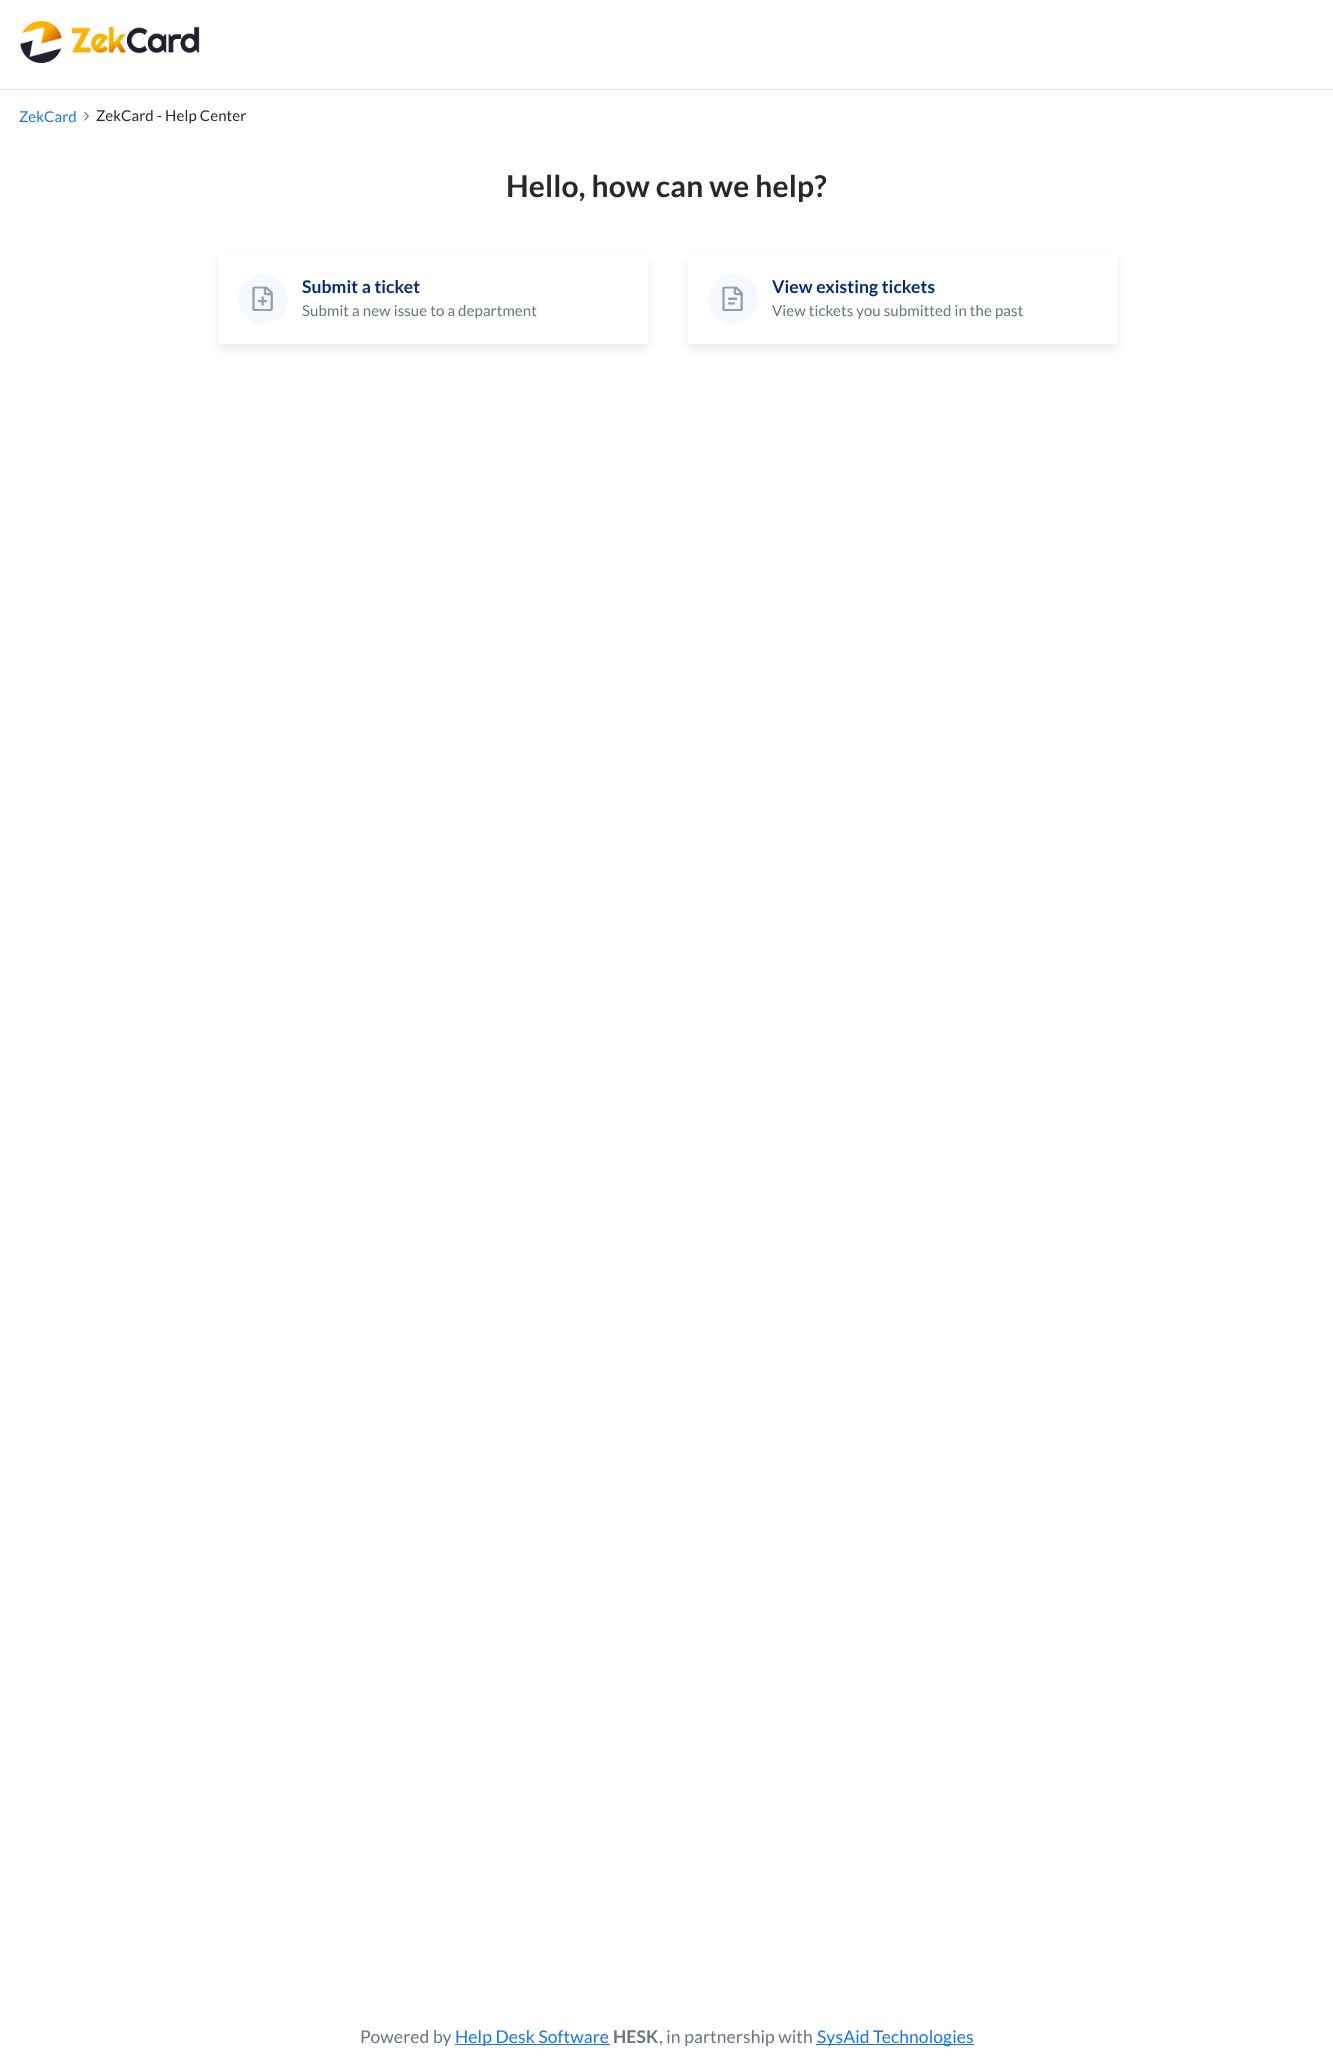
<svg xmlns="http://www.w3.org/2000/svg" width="1333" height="2070">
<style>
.a{font:15px Lato;letter-spacing:0.1px;fill:#1776ea}
.b{font:15px Lato;letter-spacing:0.1px;fill:#26282a}
.c{font:bold 30px Lato;letter-spacing:0.15px;fill:#26282a}
.d{font:bold 17.5px Lato;letter-spacing:0.1px;fill:#002d73}
.e{font:15px Lato;letter-spacing:0.1px;fill:#6b7480}
.f{font:17.5px Lato;letter-spacing:0.1px;fill:#6b7480}
.g{font:17.5px Lato;letter-spacing:0.1px;fill:#1776ea}
.h{font:bold 17.5px Lato;letter-spacing:0.1px;fill:#6b7480}
</style>
<rect width="100%" height="100%" fill="#fff"/>
<path fill="#dfe4ec" d="M0 89h1333v1H0z"/>
<image href="1.png" x="20" y="20" width="180" height="43"/>
<image href="2.png" x="84" y="112" width="5" height="9"/>
<path fill="#26282a1a" filter="blur(5px)" d="M218 259h430v90H218z"/>
<path fill="#fff" d="M218 254h430v90H218z"/>
<circle fill="#f5f8ff" cx="263" cy="299" r="25"/>
<image href="3.png" x="252" y="286" width="21" height="25"/>
<path fill="#26282a1a" filter="blur(5px)" d="M688 259h430v90H688z"/>
<path fill="#fff" d="M688 254h430v90H688z"/>
<circle fill="#f5f8ff" cx="733" cy="299" r="25"/>
<image href="4.png" x="722" y="286" width="21" height="25"/>
<path fill="#1776ea" d="M455 2044h155v1H455z"/>
<path fill="#1776ea" d="M816 2044h158v1H816z"/>
<text class="a" x="19" y="122">ZekCard</text>
<text class="b" x="96" y="121">ZekCard - Help Center</text>
<text class="c" x="506" y="197">Hello, how can we help?</text>
<text class="d" x="302" y="293">Submit a ticket</text>
<text class="e" x="302" y="316">Submit a new issue to a department</text>
<text class="d" x="772" y="293">View existing tickets</text>
<text class="e" x="772" y="316">View tickets you submitted in the past</text>
<text class="f" x="360" y="2043">Powered by</text>
<text class="g" x="455" y="2043">Help Desk Software</text>
<text class="h" x="613" y="2043">HESK</text>
<text class="f" x="659" y="2043">, in partnership with</text>
<text class="g" x="817" y="2043">SysAid Technologies</text>
</svg>
